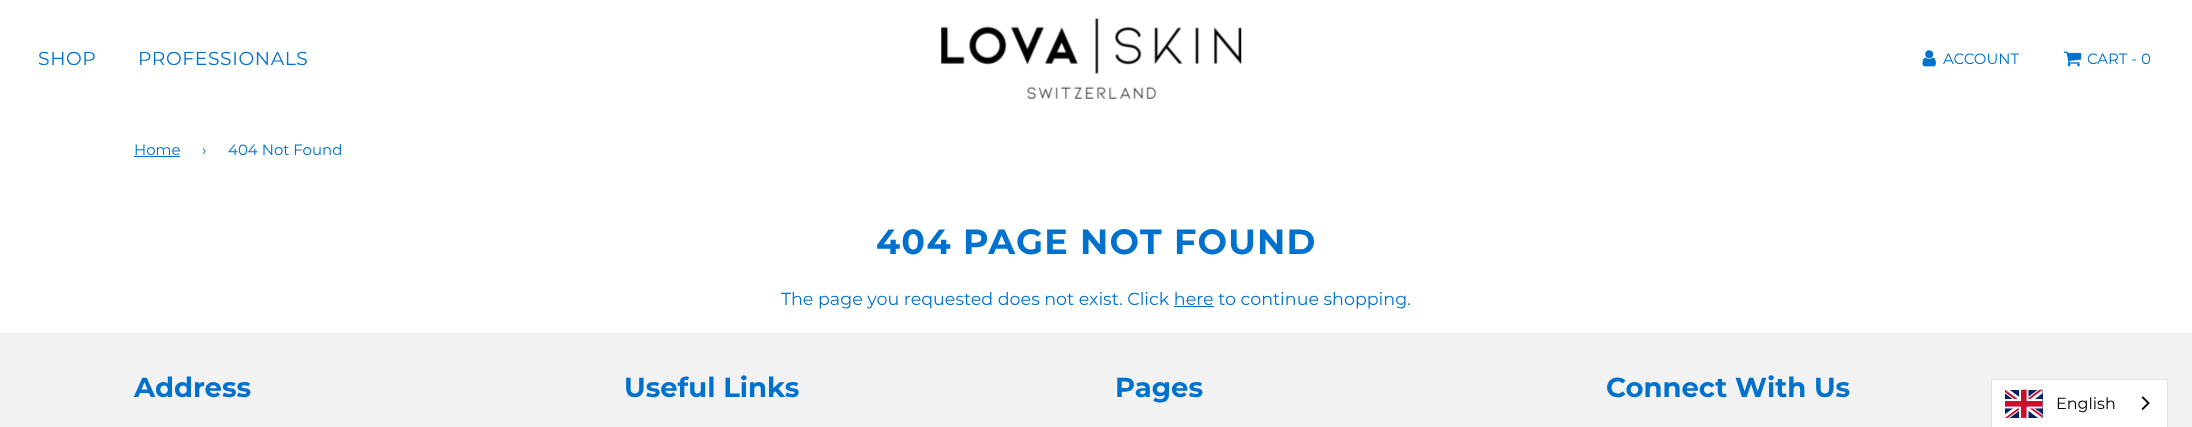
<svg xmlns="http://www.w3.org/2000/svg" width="2192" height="427">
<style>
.a{font:18.75px Montserrat;letter-spacing:0.6px;fill:#0072ce}
.b{font:15px Montserrat;fill:#0072ce}
.c{font:bold 35px Montserrat;letter-spacing:1.25px;fill:#0072ce}
.d{font:17.5px Montserrat;fill:#0072ce}
.e{font:bold 27.5px Montserrat;fill:#0072ce}
.f{font:16px Montserrat;fill:#000}
</style>
<rect width="100%" height="100%" fill="#fff"/>
<image href="1.png" x="941" y="18" width="301" height="81"/>
<image href="2.png" x="1922" y="50" width="14" height="17"/>
<image href="3.png" x="2063" y="51" width="19" height="16"/>
<path fill="#0072ce" d="M134 156h46v1H134z"/>
<path fill="#0072ce" d="M1174 306h40v1H1174z"/>
<path fill="#f2f2f2" d="M0 333h2192v94H0z"/>
<path fill="#fff" stroke="#e0e0e0" d="M1991.5 379.5h176v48H1991.5z"/>
<image href="4.png" x="2005" y="389" width="38" height="29"/>
<image href="5.png" x="2141" y="396" width="9" height="14"/>
<text class="a" x="38" y="65">SHOP</text>
<text class="a" x="138" y="65">PROFESSIONALS</text>
<text class="b" x="1943" y="64">ACCOUNT</text>
<text class="b" x="2087" y="64">CART - 0</text>
<text class="b" x="134" y="155">Home</text>
<text class="b" x="202" y="155">›</text>
<text class="b" x="228" y="155">404 Not Found</text>
<text class="c" x="876" y="254">404 PAGE NOT FOUND</text>
<text class="d" x="781" y="305">The page you requested does not exist. Click here to continue shopping.</text>
<text class="e" x="134" y="397">Address</text>
<text class="e" x="624" y="397">Useful Links</text>
<text class="e" x="1115" y="397">Pages</text>
<text class="e" x="1606" y="397">Connect With Us</text>
<text class="f" x="2056" y="409">English</text>
</svg>
